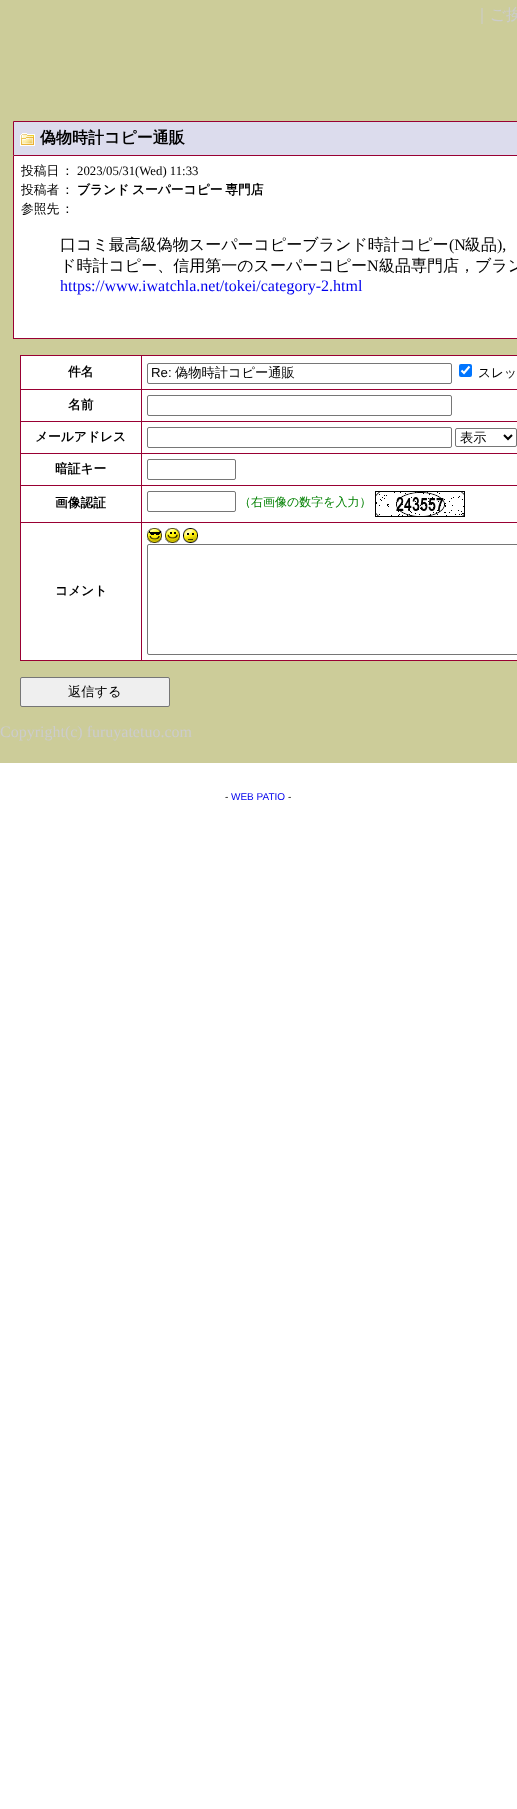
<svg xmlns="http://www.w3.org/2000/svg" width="517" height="1809">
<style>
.a{font:500 16px WenQuanYi Zen Hei;fill:#ccc}
.b{font:bold 16px WenQuanYi Zen Hei;fill:#000}
.c{font:500 12.75px WenQuanYi Zen Hei;fill:#000}
.d{font:12.75px Liberation Serif;fill:#000}
.e{font:bold 12.75px WenQuanYi Zen Hei;fill:#000}
.f{font:500 16px WenQuanYi Zen Hei;fill:#000}
.g{font:16px Liberation Serif;fill:#000}
.h{font:16px Liberation Serif;fill:#00e}
.i{font:13.25px Liberation Sans;fill:#000}
.j{font:500 13.25px WenQuanYi Zen Hei;fill:#000}
.k{font:500 12px WenQuanYi Zen Hei;fill:#008000}
.l{font:16px Liberation Serif;fill:#ccc}
.m{font:10px Liberation Sans;fill:#000}
.n{font:10px Liberation Sans;fill:#00e}
</style>
<rect width="100%" height="100%" fill="#fff"/>
<path fill="#cc9" d="M0 0h517v763H0z"/>
<path fill="#dcdced" stroke="#903" d="M13.5 121.5h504v34H13.5z"/>
<image href="1.png" x="20" y="133" width="15" height="13"/>
<path fill="#fff" d="M14 156h503v182H14z"/>
<path fill="#903" d="M13 338h504v1H13z"/>
<path fill="#903" d="M13 156h1v183H13z"/>
<path fill="#fff" d="M21 356h120v33H21z"/>
<path fill="#903" d="M141 355h376v1H141z"/>
<path fill="#903" d="M141 389h376v1H141z"/>
<path fill="#903" d="M141 421h376v1H141z"/>
<path fill="#903" d="M141 453h376v1H141z"/>
<path fill="#903" d="M141 485h376v1H141z"/>
<path fill="#903" d="M141 522h376v1H141z"/>
<path fill="#903" d="M141 660h376v1H141z"/>
<path fill="#903" d="M141 522h1v139H141z"/>
<path fill="#903" d="M20 522h122v1H20z"/>
<path fill="#903" d="M141 485h1v38H141z"/>
<path fill="#903" d="M20 485h122v1H20z"/>
<path fill="#903" d="M141 453h1v33H141z"/>
<path fill="#903" d="M20 453h122v1H20z"/>
<path fill="#903" d="M141 421h1v33H141z"/>
<path fill="#903" d="M20 421h122v1H20z"/>
<path fill="#903" d="M141 389h1v33H141z"/>
<path fill="#903" d="M20 389h122v1H20z"/>
<path fill="#903" d="M141 355h1v35H141z"/>
<path fill="#903" d="M20 355h122v1H20z"/>
<path fill="#903" d="M20 660h122v1H20z"/>
<path fill="#903" d="M20 522h1v139H20z"/>
<path fill="#903" d="M20 485h1v38H20z"/>
<path fill="#903" d="M20 453h1v33H20z"/>
<path fill="#903" d="M20 421h1v33H20z"/>
<path fill="#903" d="M20 389h1v33H20z"/>
<path fill="#903" d="M20 355h1v35H20z"/>
<path fill="#fff" d="M142 356h375v33H142z"/>
<rect fill="none" stroke="#767676" x="147.5" y="363.5" width="304" height="20" rx="1.5"/>
<rect fill="#0075ff" x="459" y="364" width="13" height="13" rx="2"/>
<path fill="none" stroke="#fff" stroke-width="2.1" d="M461.5 370.5l2.5 2.5l5.5-6.5"/>
<path fill="#fff" d="M21 390h120v31H21z"/>
<path fill="#fff" d="M142 390h375v31H142z"/>
<rect fill="none" stroke="#767676" x="147.5" y="395.5" width="304" height="20" rx="1.5"/>
<path fill="#fff" d="M21 422h120v31H21z"/>
<path fill="#fff" d="M142 422h375v31H142z"/>
<rect fill="none" stroke="#767676" x="147.5" y="427.5" width="304" height="20" rx="1.5"/>
<rect fill="none" stroke="#767676" x="455.5" y="428.5" width="61" height="18" rx="1.5"/>
<path fill="none" stroke="#000" stroke-width="2" d="M504 435l4 4l4-4"/>
<path fill="#fff" d="M21 454h120v31H21z"/>
<path fill="#fff" d="M142 454h375v31H142z"/>
<rect fill="none" stroke="#767676" x="147.5" y="459.5" width="88" height="20" rx="1.5"/>
<path fill="#fff" d="M21 486h120v36H21z"/>
<path fill="#fff" d="M142 486h375v36H142z"/>
<rect fill="none" stroke="#767676" x="147.5" y="491.5" width="88" height="20" rx="1.5"/>
<image href="2.png" x="375" y="491" width="90" height="26"/>
<path fill="#fff" d="M21 523h120v137H21z"/>
<path fill="#fff" d="M142 523h375v137H142z"/>
<image href="3.png" x="147" y="528" width="15" height="15"/>
<image href="4.png" x="165" y="528" width="15" height="15"/>
<image href="5.png" x="183" y="528" width="15" height="15"/>
<rect fill="none" stroke="#767676" x="147.5" y="544.5" width="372" height="110" rx="1.5"/>
<rect fill="#efefef" stroke="#767676" x="20.5" y="677.5" width="149" height="29" rx="1.5"/>
<text class="a" x="474" y="20">｜ご挨</text>
<text class="b" x="40" y="143">偽物時計コピー通販</text>
<text class="c" x="21" y="175">投稿日</text>
<text class="c" x="61" y="175">：</text>
<text class="d" x="77" y="175">2023/05/31(Wed) 11:33</text>
<text class="c" x="21" y="194">投稿者</text>
<text class="c" x="61" y="194">：</text>
<text class="e" x="77" y="194" word-spacing="-1">ブランド スーパーコピー 専門店</text>
<text class="c" x="21" y="213">参照先</text>
<text class="c" x="61" y="213">：</text>
<text class="f" x="60" y="250">口コミ最高級偽物スーパーコピーブランド時計コピー</text>
<text class="g" x="449" y="250">(N</text>
<text class="f" x="465" y="250">級品</text>
<text class="g" x="497" y="250">),</text>
<text class="f" x="60" y="271">ド時計コピー、信用第一のスーパーコピー</text>
<text class="g" x="367" y="271">N</text>
<text class="f" x="379" y="271">級品専門店，ブラン</text>
<text class="h" x="60" y="291">https://www.iwatchla.net/tokei/category-2.html</text>
<text class="e" x="68" y="376">件名</text>
<text class="i" x="151" y="377">Re:</text>
<text class="j" x="175" y="377">偽物時計コピー通販</text>
<text class="c" x="478" y="377">スレッ</text>
<text class="e" x="68" y="409">名前</text>
<text class="e" x="35" y="441">メールアドレス</text>
<text class="j" x="460" y="442">表示</text>
<text class="e" x="55" y="473">暗証キー</text>
<text class="e" x="55" y="507">画像認証</text>
<text class="k" x="239" y="506">（右画像の数字を入力）</text>
<text class="e" x="55" y="595">コメント</text>
<text class="j" x="68" y="696">返信する</text>
<text class="l" x="0" y="737">Copyright(c) furuyatetuo.com</text>
<text class="m" x="225" y="800">-</text>
<text class="n" x="231" y="800">WEB PATIO</text>
<text class="m" x="288" y="800">-</text>
</svg>
